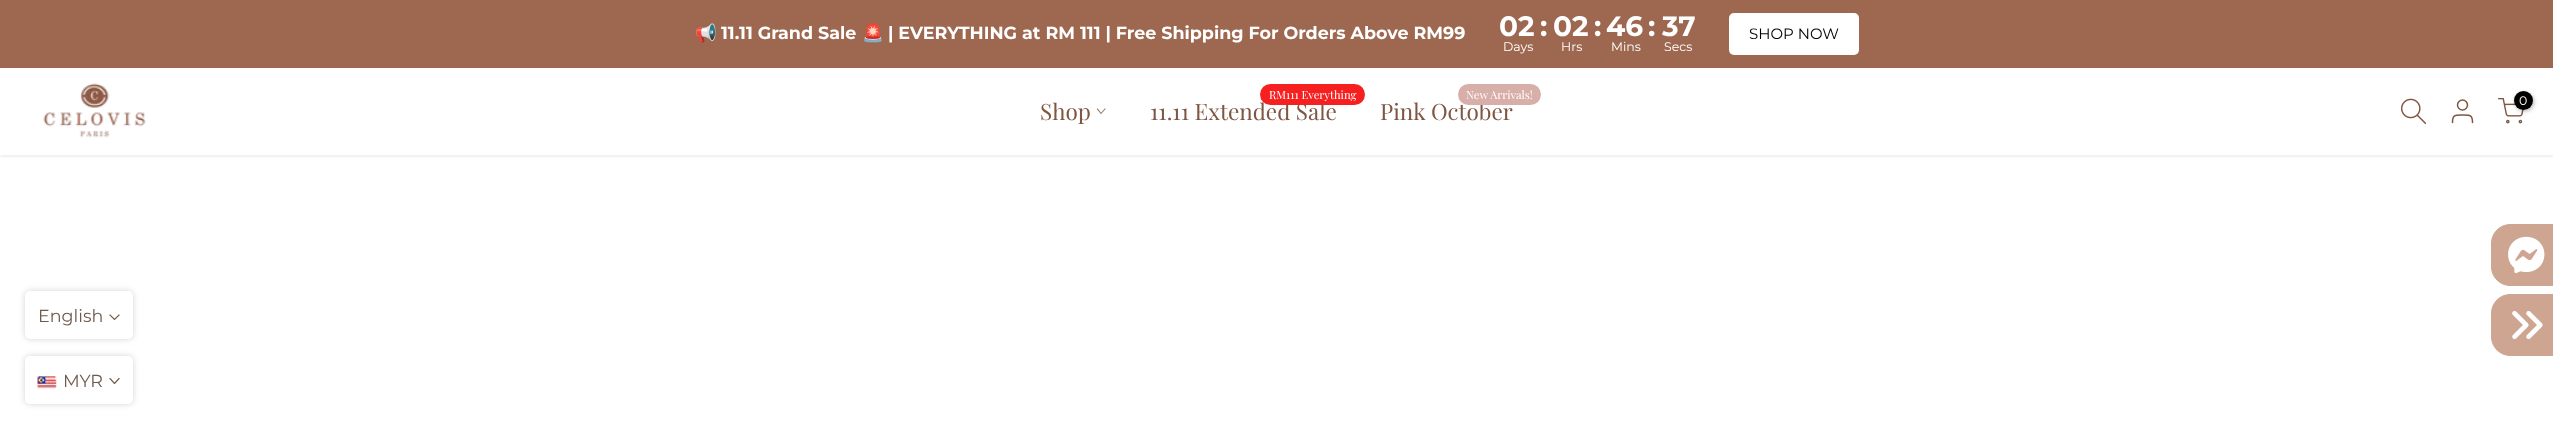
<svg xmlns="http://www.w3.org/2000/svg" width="2553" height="428">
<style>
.a{font:bold 17.5px Noto Color Emoji;fill:#fff}
.b{font:bold 17.5px Montserrat;fill:#fff}
.c{font:bold 28px Montserrat;fill:#fff}
.d{font:12.5px Montserrat;fill:#fff}
.e{font:15px Montserrat;fill:#000}
.f{font:22.5px Playfair Display;fill:#7f5642}
.g{font:11.25px Playfair Display;fill:#fff}
.h{font:17.5px Montserrat;fill:#6e5a4d}
</style>
<defs>
<clipPath id="clip1"><path d="M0 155h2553v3H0z"/></clipPath>
<clipPath id="clip2"><path d="M109 378h11v6H109z"/></clipPath>
</defs>
<rect width="100%" height="100%" fill="#fff"/>
<g clip-path="url(#clip1)">
<path fill="#0000001a" filter="blur(2px)" d="M0 1h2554v155H0z"/>
</g>
<path fill="#9e6850" d="M0 0h2553v68H0z"/>
<rect fill="#fff" x="1729" y="13" width="130" height="42" rx="5"/>
<image href="1.png" x="43" y="83" width="103" height="55"/>
<path fill="none" stroke="#997868" stroke-width="1.1" stroke-linecap="square" d="M1105 109l-4 4.5l-3.5-4.5"/>
<image href="2.png" x="2400" y="98" width="27" height="27"/>
<circle fill="none" stroke="#7f5642" stroke-width="1.5" cx="2462.5" cy="105" r="5"/>
<path fill="none" stroke="#7f5642" stroke-width="1.5" stroke-linecap="round" stroke-linejoin="round" d="M2472.5 122.5c0-8-3-7.5-10-7.5c-7 0-10-.5-10 7.5"/>
<image href="3.png" x="2498" y="98" width="26" height="26"/>
<rect fill="#0000004d" filter="blur(2px)" x="2515" y="93" width="19" height="18" rx="9"/>
<circle fill="#000" cx="2523.5" cy="100.5" r="9.5"/>
<rect fill="#0000002b" filter="blur(3px)" x="25" y="291" width="108" height="48" rx="5"/>
<rect fill="#fff" x="25" y="291" width="108" height="48" rx="5"/>
<path fill="none" stroke="#6e5a4d" stroke-width="1.2" stroke-linecap="square" d="M119 315l-4.5 4.5l-4.5-4.5"/>
<path fill="#cea591" stroke="#cea591" d="M2510 224.5h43.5v61h-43.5c-10 0-18.5-8.5-18.5-18.5v-24c0-10 8.5-18.5 18.5-18.5z"/>
<image href="4.png" x="2508" y="236" width="37" height="38"/>
<path fill="#cea591" stroke="#cea591" d="M2510 294.5h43.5v61h-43.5c-10 0-18.5-8.5-18.5-18.5v-24c0-10 8.5-18.5 18.5-18.5z"/>
<image href="5.png" x="2512" y="311" width="31" height="28"/>
<rect fill="#0000002b" filter="blur(3px)" x="25" y="356" width="108" height="48" rx="5"/>
<rect fill="#fff" x="25" y="356" width="108" height="48" rx="5"/>
<image href="6.png" x="37" y="376" width="20" height="13"/>
<g clip-path="url(#clip2)">
<path fill="none" stroke="#6e5a4d" stroke-width="1.2" stroke-linecap="square" d="M119 378.5l-4.5 5l-4.5-5"/>
</g>
<text class="a" x="695" y="39">📢</text>
<text class="b" x="721" y="39">11.11 Grand Sale</text>
<text class="a" x="862" y="39">🚨</text>
<text class="b" x="888" y="39">| EVERYTHING at RM 111 | Free Shipping For Orders Above RM99</text>
<text class="c" x="1499" y="36">02</text>
<text class="c" x="1540" y="36">:</text>
<text class="c" x="1553" y="36">02</text>
<text class="c" x="1594" y="36">:</text>
<text class="c" x="1606" y="36">46</text>
<text class="c" x="1648" y="36">:</text>
<text class="c" x="1662" y="36">37</text>
<text class="d" x="1503" y="51">Days</text>
<text class="d" x="1561" y="51">Hrs</text>
<text class="d" x="1611" y="51">Mins</text>
<text class="d" x="1664" y="51">Secs</text>
<text class="e" x="1749" y="39">SHOP NOW</text>
<text class="f" x="1040" y="120">Shop</text>
<text class="f" x="1150" y="120">11.11 Extended Sale</text>
<rect fill="#f72020" x="1260" y="84" width="105" height="21" rx="10.5"/>
<text class="g" x="1269" y="99">RM111 Everything</text>
<text class="f" x="1380" y="120">Pink October</text>
<rect fill="#d8afa8" x="1458" y="84" width="83" height="21" rx="10.5"/>
<text class="g" x="1466" y="99">New Arrivals!</text>
<text class="d" x="2519" y="105">0</text>
<text class="h" x="38" y="322">English</text>
<text class="h" x="63" y="387">MYR</text>
</svg>
